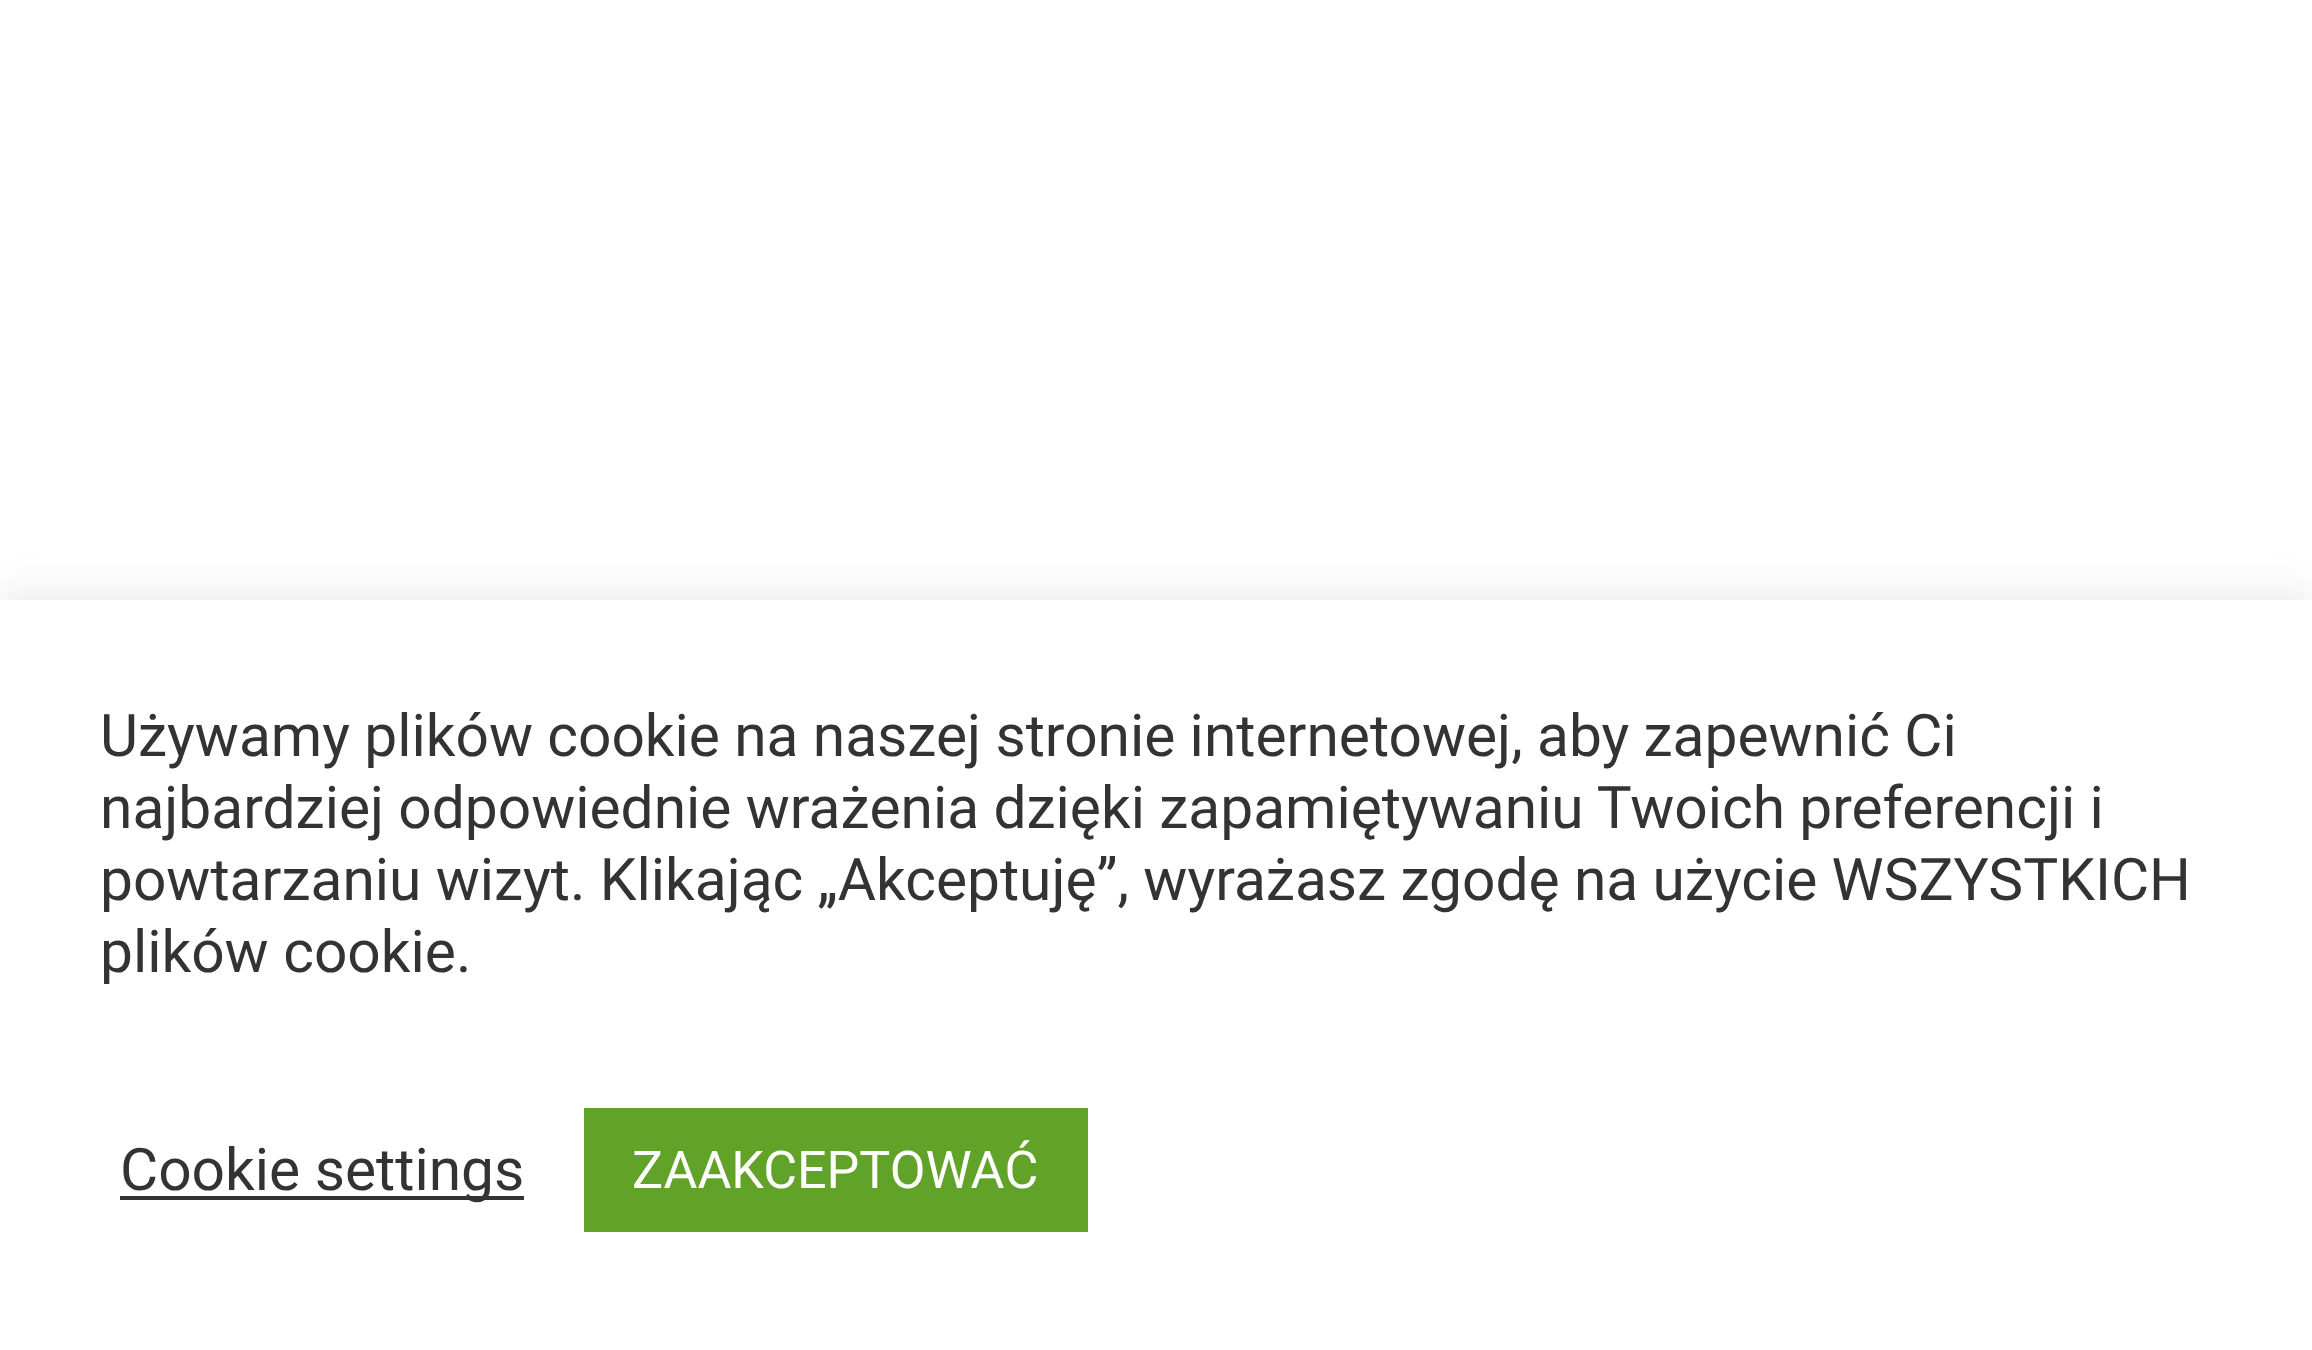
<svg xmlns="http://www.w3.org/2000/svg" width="2312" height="1350">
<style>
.a{font:58.65px Roboto;fill:#333}
.b{font:52px Roboto;fill:#fff}
</style>
<rect width="100%" height="100%" fill="#fff"/>
<path fill="#acabab4d" filter="blur(20px)" d="M0 596h2312v752H0z"/>
<path fill="#fff" d="M0 600h2312v750H0z"/>
<path fill="#333" d="M120 1196h404v4H120z"/>
<path fill="#61a229" d="M584 1108h504v124H584z"/>
<text class="a" x="100" y="756" word-spacing="-0.25">Używamy plików cookie na naszej stronie internetowej, aby zapewnić Ci</text>
<text class="a" x="100" y="828" word-spacing="-0.25">najbardziej odpowiednie wrażenia dzięki zapamiętywaniu Twoich preferencji i</text>
<text class="a" x="100" y="900" word-spacing="-0.25">powtarzaniu wizyt. Klikając „Akceptuję”, wyrażasz zgodę na użycie WSZYSTKICH</text>
<text class="a" x="100" y="972">plików cookie.</text>
<text class="a" x="120" y="1190">Cookie settings</text>
<text class="b" x="632" y="1188">ZAAKCEPTOWAĆ</text>
</svg>
